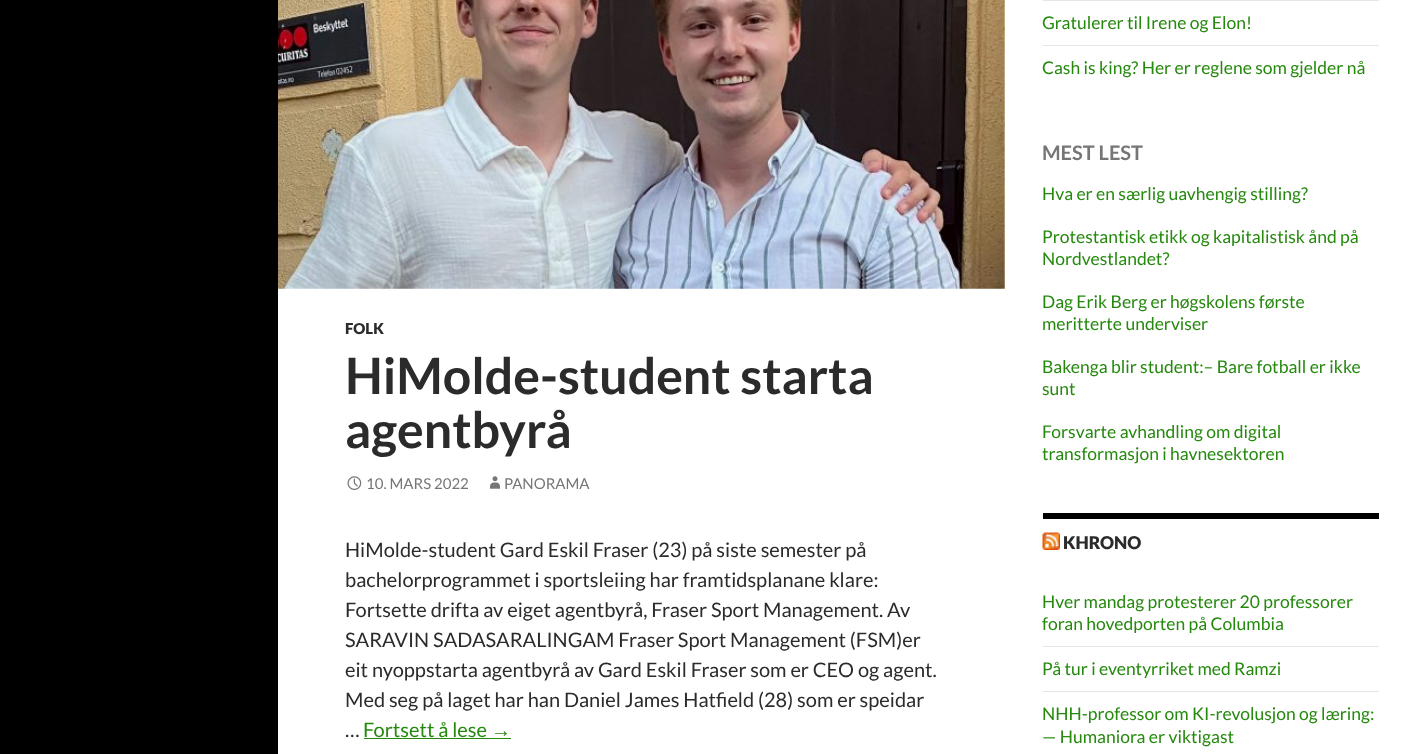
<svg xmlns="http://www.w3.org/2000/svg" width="1416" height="754">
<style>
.a{font:900 15px Lato;fill:#2b2b2b}
.b{font:bold 50px Lato;fill:#2b2b2b}
.c{font:15px Lato;fill:#767676}
.d{font:20px Lato;fill:#2b2b2b}
.e{font:20px Lato;fill:#24890d}
.f{font:20px Liberation Sans;fill:#24890d}
.g{font:17.5px Lato;fill:#24890d}
.h{font:bold 20px Lato;fill:#767676}
.i{font:900 17.5px Lato;fill:#2b2b2b}
</style>
<rect width="100%" height="100%" fill="#fff"/>
<path fill="#000" d="M0 0h278v754H0z"/>
<image href="1.png" x="278" y="0" width="727" height="289"/>
<image href="2.png" x="347" y="476" width="15" height="14"/>
<image href="3.png" x="490" y="476" width="10" height="13"/>
<path fill="#24890d" d="M364 738h147v1H364z"/>
<path fill="#e6e6e6" d="M1043 0h336v1H1043z"/>
<path fill="#e6e6e6" d="M1043 45h336v1H1043z"/>
<path fill="#000" d="M1043 513h336v6H1043z"/>
<image href="4.png" x="1042" y="532" width="18" height="18"/>
<path fill="#e6e6e6" d="M1043 646h336v1H1043z"/>
<path fill="#e6e6e6" d="M1043 691h336v1H1043z"/>
<text class="a" x="345" y="334">FOLK</text>
<text class="b" x="345" y="394">HiMolde-student starta</text>
<text class="b" x="345" y="448">agentbyrå</text>
<text class="c" x="366" y="489">10. MARS 2022</text>
<text class="c" x="504" y="489">PANORAMA</text>
<text class="d" x="345" y="557">HiMolde-student Gard Eskil Fraser (23) på siste semester på</text>
<text class="d" x="345" y="587">bachelorprogrammet i sportsleiing har framtidsplanane klare:</text>
<text class="d" x="345" y="617">Fortsette drifta av eiget agentbyrå, Fraser Sport Management. Av</text>
<text class="d" x="345" y="647">SARAVIN SADASARALINGAM Fraser Sport Management (FSM)er</text>
<text class="d" x="345" y="677">eit nyoppstarta agentbyrå av Gard Eskil Fraser som er CEO og agent.</text>
<text class="d" x="345" y="707">Med seg på laget har han Daniel James Hatfield (28) som er speidar</text>
<text class="d" x="345" y="737">…</text>
<text class="e" x="363" y="737">Fortsett å lese</text>
<text class="f" x="491" y="737">→</text>
<text class="g" x="1042" y="29">Gratulerer til Irene og Elon!</text>
<text class="g" x="1042" y="74">Cash is king? Her er reglene som gjelder nå</text>
<text class="h" x="1042" y="160">MEST LEST</text>
<text class="g" x="1042" y="200">Hva er en særlig uavhengig stilling?</text>
<text class="g" x="1042" y="243">Protestantisk etikk og kapitalistisk ånd på</text>
<text class="g" x="1042" y="265">Nordvestlandet?</text>
<text class="g" x="1042" y="308">Dag Erik Berg er høgskolens første</text>
<text class="g" x="1042" y="330">meritterte underviser</text>
<text class="g" x="1042" y="373">Bakenga blir student:– Bare fotball er ikke</text>
<text class="g" x="1042" y="395">sunt</text>
<text class="g" x="1042" y="438">Forsvarte avhandling om digital</text>
<text class="g" x="1042" y="460">transformasjon i havnesektoren</text>
<text class="i" x="1063" y="549">KHRONO</text>
<text class="g" x="1042" y="608">Hver mandag protesterer 20 professorer</text>
<text class="g" x="1042" y="630">foran hovedporten på Columbia</text>
<text class="g" x="1042" y="675">På tur i eventyrriket med Ramzi</text>
<text class="g" x="1042" y="720">NHH-professor om KI-revolusjon og læring:</text>
<text class="g" x="1042" y="743">— Humaniora er viktigast</text>
</svg>
